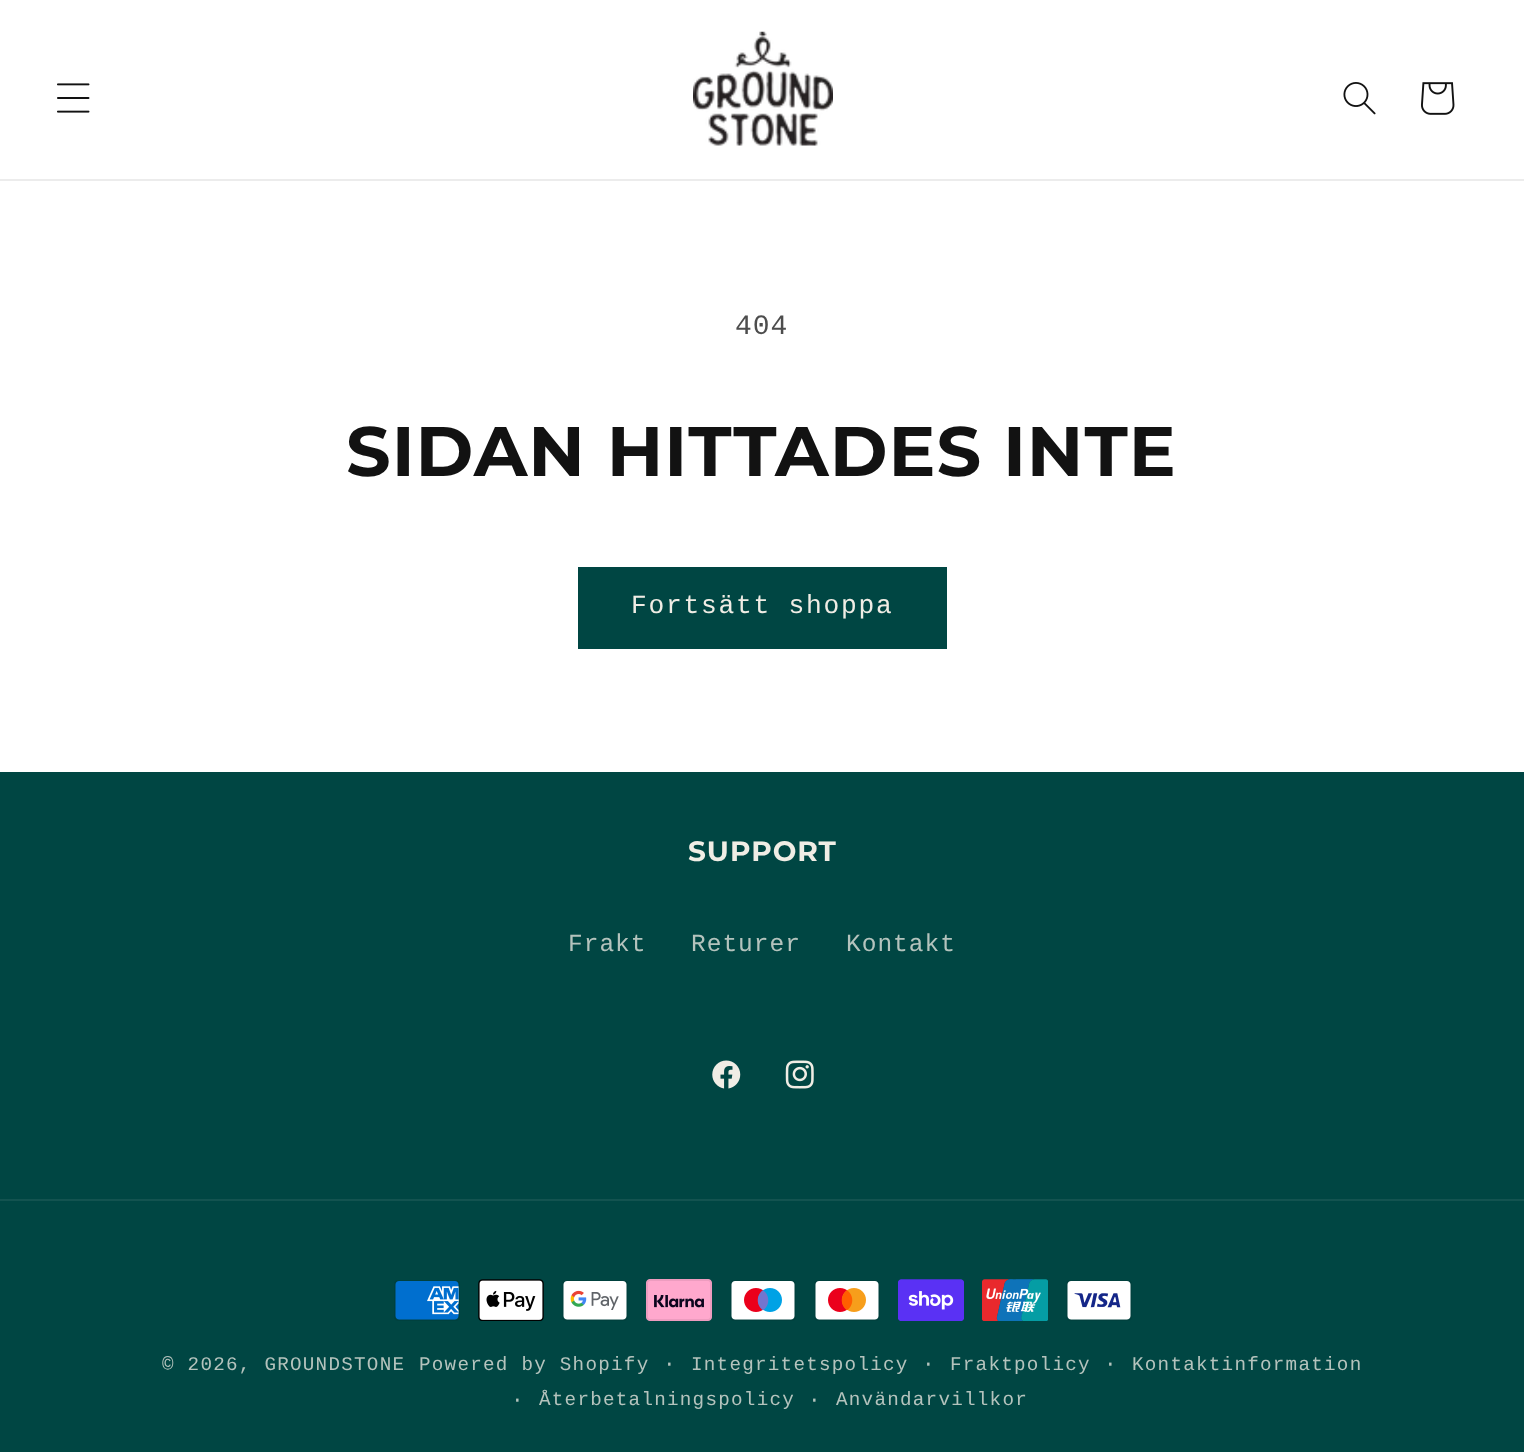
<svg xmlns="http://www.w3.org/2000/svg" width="1524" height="1452">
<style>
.a{font:28px Liberation Mono;letter-spacing:1px;fill:#4d4d4d}
.b{font:bold 70px Montserrat;letter-spacing:1px;fill:#121212}
.c{font:26.25px Liberation Mono;letter-spacing:1.75px;fill:#f0ede5}
.d{font:bold 28px Montserrat;letter-spacing:1px;fill:#f0ede5}
.e{font:24.5px Liberation Mono;letter-spacing:1px;fill:#b4c3bd}
.f{font:19.25px Liberation Mono;letter-spacing:1.25px;fill:#b4c3bd}
.g{font:21px Liberation Mono;letter-spacing:1.25px;fill:#b4c3bd}
</style>
<rect width="100%" height="100%" fill="#fff"/>
<path fill="#ececec" d="M0 179h1524v2H0z"/>
<image href="1.png" x="57" y="83" width="33" height="30"/>
<image href="2.png" x="693" y="31" width="140" height="115"/>
<image href="3.png" x="1343" y="82" width="33" height="33"/>
<image href="4.png" x="1421" y="82" width="34" height="33"/>
<path fill="#004643" d="M578 567h369v82H578z"/>
<path fill="#004643" d="M0 772h1524v680H0z"/>
<image href="5.png" x="712" y="1060" width="29" height="29"/>
<image href="6.png" x="785" y="1060" width="29" height="29"/>
<path fill="#135350" d="M0 1199h1524v2H0z"/>
<image href="7.png" x="394" y="1280" width="66" height="41"/>
<image href="8.png" x="478" y="1279" width="66" height="42"/>
<image href="9.png" x="562" y="1280" width="66" height="41"/>
<image href="10.png" x="646" y="1279" width="66" height="42"/>
<image href="11.png" x="730" y="1280" width="66" height="41"/>
<image href="12.png" x="814" y="1280" width="66" height="41"/>
<image href="13.png" x="898" y="1279" width="66" height="42"/>
<image href="14.png" x="982" y="1279" width="66" height="42"/>
<image href="15.png" x="1066" y="1280" width="66" height="41"/>
<text class="a" x="735" y="334">404</text>
<text class="b" x="346" y="476">SIDAN HITTADES INTE</text>
<text class="c" x="631" y="613">Fortsätt shoppa</text>
<text class="d" x="688" y="861">SUPPORT</text>
<text class="e" x="568" y="951">Frakt</text>
<text class="e" x="691" y="951">Returer</text>
<text class="e" x="846" y="951">Kontakt</text>
<text class="f" x="162" y="1370">© 2026, GROUNDSTONE</text>
<text class="f" x="419" y="1370">Powered by Shopify</text>
<text class="g" x="663" y="1370">·</text>
<text class="f" x="691" y="1370">Integritetspolicy</text>
<text class="g" x="922" y="1370">·</text>
<text class="f" x="950" y="1370">Fraktpolicy</text>
<text class="g" x="1104" y="1370">·</text>
<text class="f" x="1132" y="1370">Kontaktinformation</text>
<text class="g" x="511" y="1406">·</text>
<text class="f" x="539" y="1405">Återbetalningspolicy</text>
<text class="g" x="808" y="1406">·</text>
<text class="f" x="836" y="1405">Användarvillkor</text>
</svg>
